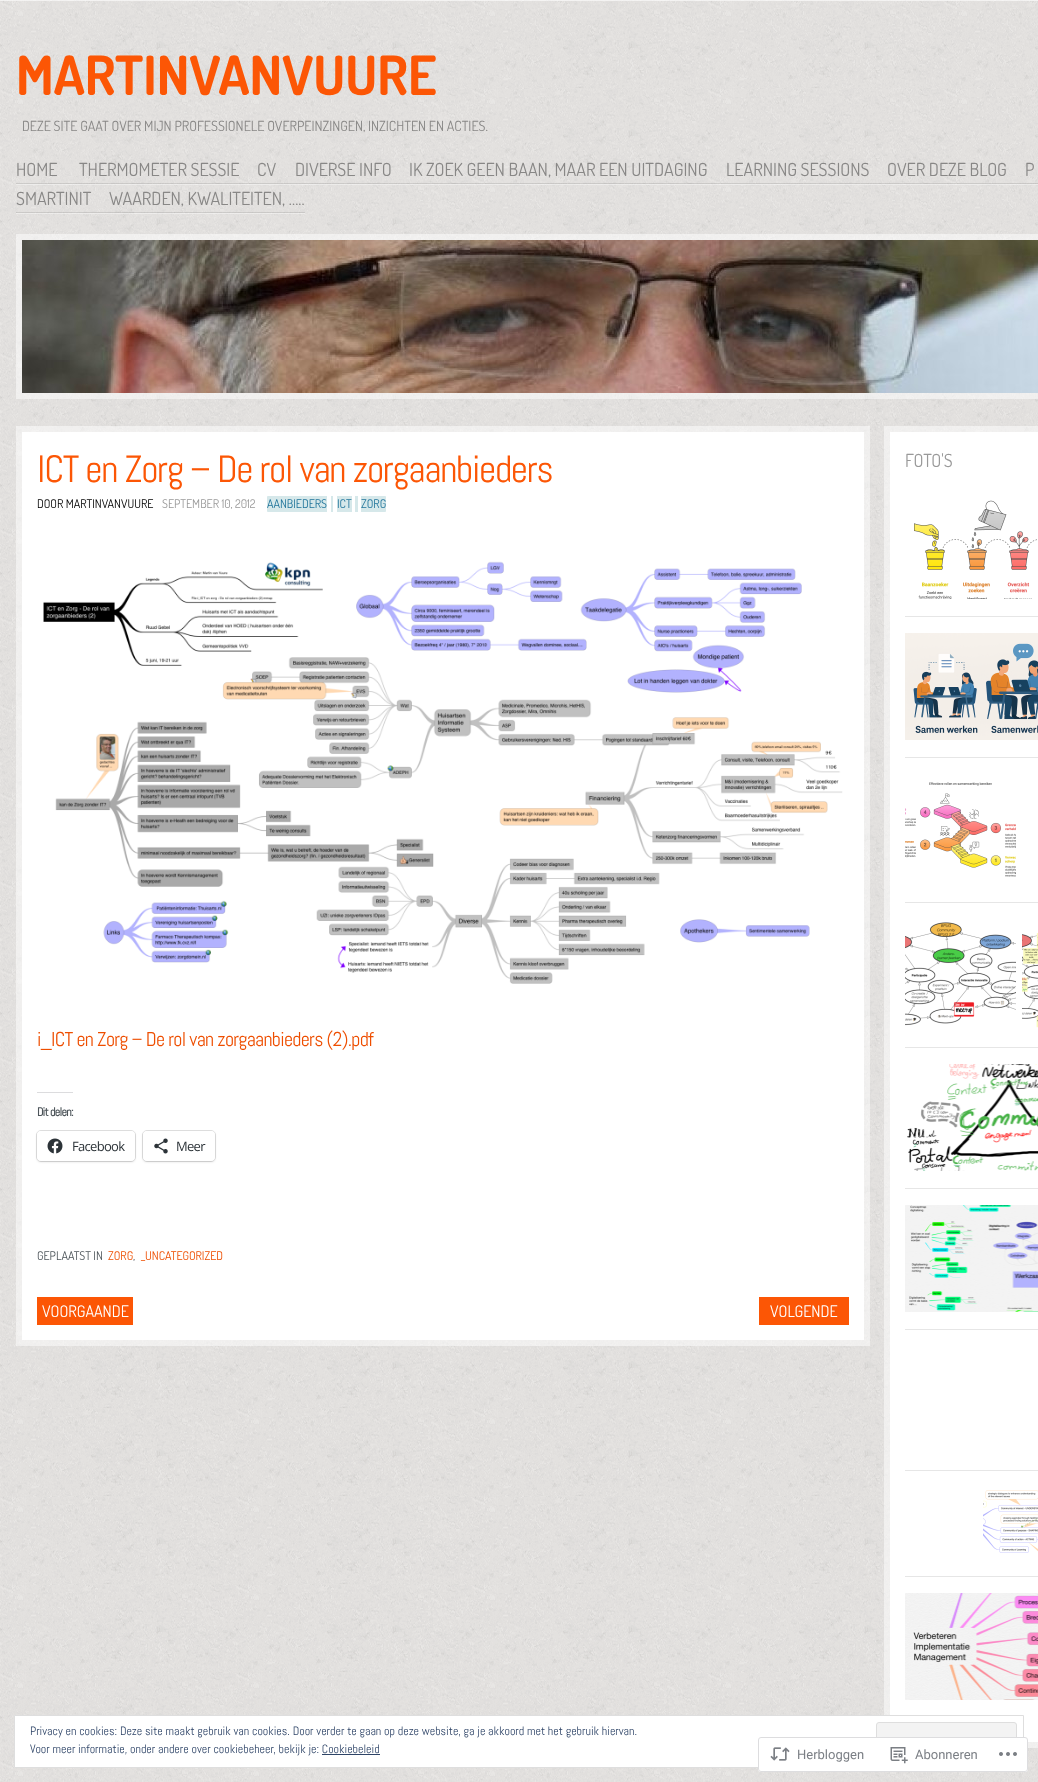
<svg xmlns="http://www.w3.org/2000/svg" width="1038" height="1782">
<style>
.a{font:bold 54px Dosis;fill:#fc5605}
.b{font:14px Dosis;fill:#888786}
.c{font:18px Dosis;fill:#888786}
.d{font:38px Abel;letter-spacing:-1.35px;fill:#fc5605}
.e{font:12px Dosis;fill:#000}
.f{font:12px Dosis;fill:#999}
.g{font:12px Dosis;fill:#21759b}
.h{font:20px Abel;letter-spacing:-0.7px;fill:#ee4e00}
.i{font:bold 12px Abel;letter-spacing:-0.7px;fill:#4d555a}
.j{font:13px Open Sans;letter-spacing:-0.7px;fill:#2c3338}
.k{font:12px Dosis;fill:#4d555a}
.l{font:12px Dosis;fill:#ee4e00}
.m{font:16px Dosis;fill:#fff}
.n{font:18px Dosis;fill:#999}
.o{font:12px Abel;fill:#2e4467}
.p{font:13px Roboto;fill:#7b7f85}
</style>
<rect width="100%" height="100%" fill="#ebe9e7"/>
<image href="1.png" x="0" y="0" width="1038" height="1782"/>
<path fill="#ffffff99" d="M0 0h1038v1H0z"/>
<path fill="#ffffff66" d="M16 184h59v1H16z"/>
<path fill="#0000001a" d="M16 183h59v1H16z"/>
<path fill="#ffffff66" d="M75 184h182v1H75z"/>
<path fill="#0000001a" d="M75 183h182v1H75z"/>
<path fill="#ffffff66" d="M257 184h38v1H257z"/>
<path fill="#0000001a" d="M257 183h38v1H257z"/>
<path fill="#ffffff66" d="M295 184h114v1H295z"/>
<path fill="#0000001a" d="M295 183h114v1H295z"/>
<path fill="#ffffff66" d="M409 184h317v1H409z"/>
<path fill="#0000001a" d="M409 183h317v1H409z"/>
<path fill="#ffffff66" d="M726 184h161v1H726z"/>
<path fill="#0000001a" d="M726 183h161v1H726z"/>
<path fill="#ffffff66" d="M887 184h138v1H887z"/>
<path fill="#0000001a" d="M887 183h138v1H887z"/>
<path fill="#ffffff66" d="M1025 184h13v1H1025z"/>
<path fill="#0000001a" d="M1025 183h13v1H1025z"/>
<path fill="#ffffff66" d="M16 213h93v1H16z"/>
<path fill="#0000001a" d="M16 212h93v1H16z"/>
<path fill="#ffffff66" d="M109 213h196v1H109z"/>
<path fill="#0000001a" d="M109 212h196v1H109z"/>
<path fill="none" stroke="#ffffff80" stroke-width="6" d="M19 237h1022v159H19z"/>
<image href="2.png" x="22" y="240" width="1016" height="153"/>
<path fill="#fff" d="M22 432h842v908H22z"/>
<path fill="none" stroke="#ffffff80" stroke-width="6" d="M19 429h848v914H19z"/>
<path fill="#d6e8ea" d="M268 496h59v16h-59c-.5 0-1-.5-1-1v-14c0-.5 .5-1 1-1z"/>
<path fill="#d6e8ea" d="M331 496h2v16H331z"/>
<path fill="#d6e8ea" d="M337 496h15v16H337z"/>
<path fill="#d6e8ea" d="M355 496h3v16H355z"/>
<path fill="#d6e8ea" d="M361 496h24c.5 0 1 .5 1 1v14c0 .5-.5 1-1 1h-24z"/>
<image href="3.png" x="43" y="561" width="800" height="423"/>
<path fill="#dcdcde" d="M37 1092h36v1H37z"/>
<rect fill="none" stroke="#e0e0e0" x="36.5" y="1130.5" width="99" height="31" rx="4.5"/>
<rect fill="#0000001f" filter="blur(1px)" x="37" y="1132" width="98" height="30" rx="4"/>
<rect fill="#fff" x="37" y="1131" width="98" height="30" rx="4"/>
<image href="4.png" x="47" y="1138" width="16" height="16"/>
<rect fill="none" stroke="#e0e0e0" x="142.5" y="1130.5" width="73" height="31" rx="4.5"/>
<rect fill="#0000001f" filter="blur(1px)" x="143" y="1132" width="72" height="30" rx="4"/>
<rect fill="#fff" x="143" y="1131" width="72" height="30" rx="4"/>
<image href="5.png" x="154" y="1138" width="14" height="16"/>
<path fill="#fc5605" d="M37 1297h96v28H37z"/>
<path fill="#fc5605" d="M759 1297h90v28H759z"/>
<path fill="#fff" d="M890 432h148v1310H890z"/>
<path fill="none" stroke="#ffffff80" stroke-width="6" d="M887 429h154v1316H887z"/>
<path fill="#e6e6e6" d="M905 616h133v1H905z"/>
<image href="6.png" x="914" y="500" width="123" height="99"/>
<path fill="#e6e6e6" d="M905 757h133v1H905z"/>
<image href="7.png" x="905" y="633" width="133" height="107"/>
<path fill="#e6e6e6" d="M905 902h133v1H905z"/>
<image href="8.png" x="905" y="782" width="111" height="95"/>
<path fill="#e6e6e6" d="M905 1047h133v1H905z"/>
<image href="9.png" x="905" y="922" width="111" height="104"/>
<image href="10.png" x="1022" y="933" width="16" height="95"/>
<path fill="#e6e6e6" d="M905 1188h133v1H905z"/>
<image href="11.png" x="907" y="1064" width="131" height="107"/>
<path fill="#e6e6e6" d="M905 1329h133v1H905z"/>
<image href="12.png" x="905" y="1205" width="133" height="107"/>
<path fill="#e6e6e6" d="M905 1470h133v1H905z"/>
<path fill="#e6e6e6" d="M905 1576h133v1H905z"/>
<image href="13.png" x="983" y="1490" width="55" height="63"/>
<image href="14.png" x="905" y="1593" width="133" height="107"/>
<path fill="#fff" stroke="#dedede" d="M14.5 1715.5h1009v52H14.5z"/>
<rect fill="#f3f3f3" stroke="#dedede" x="876.5" y="1722.5" width="140" height="38" rx="2.5"/>
<path fill="#2e4467" d="M322 1754h58v1H322z"/>
<rect fill="#fffffffa" x="758" y="1737" width="270" height="35" rx="3"/>
<rect fill="none" stroke="#dcdcdefa" x="758.5" y="1737.5" width="269" height="34" rx="2.5"/>
<image href="15.png" x="770" y="1747" width="20" height="14"/>
<image href="16.png" x="890" y="1747" width="18" height="17"/>
<image href="17.png" x="999" y="1752" width="18" height="4"/>
<text class="a" x="16" y="95">MARTINVANVUURE</text>
<text class="b" x="22" y="131">DEZE SITE GAAT OVER MIJN PROFESSIONELE OVERPEINZINGEN,</text>
<text class="b" x="368" y="131">INZICHTEN EN ACTIES.</text>
<text class="c" x="16" y="176">HOME</text>
<text class="c" x="79" y="176">THERMOMETER SESSIE</text>
<text class="c" x="257" y="176">CV</text>
<text class="c" x="295" y="176">DIVERSE INFO</text>
<text class="c" x="409" y="176">IK ZOEK GEEN BAAN, MAAR EEN UITDAGING</text>
<text class="c" x="726" y="176">LEARNING SESSIONS</text>
<text class="c" x="887" y="176">OVER DEZE BLOG</text>
<text class="c" x="1025" y="176">P</text>
<text class="c" x="16" y="205">SMARTINIT</text>
<text class="c" x="109" y="205">WAARDEN, KWALITEITEN, …..</text>
<text class="d" x="37" y="482">ICT en Zorg – De rol van zorgaanbieders</text>
<text class="e" x="37" y="508">DOOR MARTINVANVUURE</text>
<text class="f" x="162" y="508">SEPTEMBER 10, 2012</text>
<text class="g" x="267" y="508">AANBIEDERS</text>
<text class="g" x="337" y="508">ICT</text>
<text class="g" x="361" y="508">ZORG</text>
<text class="h" x="37" y="1046">i_ICT en Zorg – De rol van zorgaanbieders (2).pdf</text>
<text class="i" x="37" y="1116">Dit delen:</text>
<text class="j" x="72" y="1151">Facebook</text>
<text class="j" x="176" y="1151">Meer</text>
<text class="k" x="37" y="1260">GEPLAATST IN</text>
<text class="l" x="108" y="1260">ZORG</text>
<text class="k" x="133" y="1260">,</text>
<text class="l" x="141" y="1260">_UNCATEGORIZED</text>
<text class="m" x="42" y="1317">VOORGAANDE</text>
<text class="m" x="770" y="1317">VOLGENDE</text>
<text class="n" x="905" y="467">FOTO'S</text>
<text class="o" x="30" y="1735">Privacy en cookies: Deze site maakt gebruik van cookies. Door verder te gaan op deze website, ga je akkoord met het gebruik hiervan.</text>
<text class="o" x="30" y="1753">Voor meer informatie, onder andere over cookiebeheer, bekijk je: Cookiebeleid</text>
<text class="p" x="797" y="1759">Herbloggen</text>
<text class="p" x="915" y="1759">Abonneren</text>
</svg>
